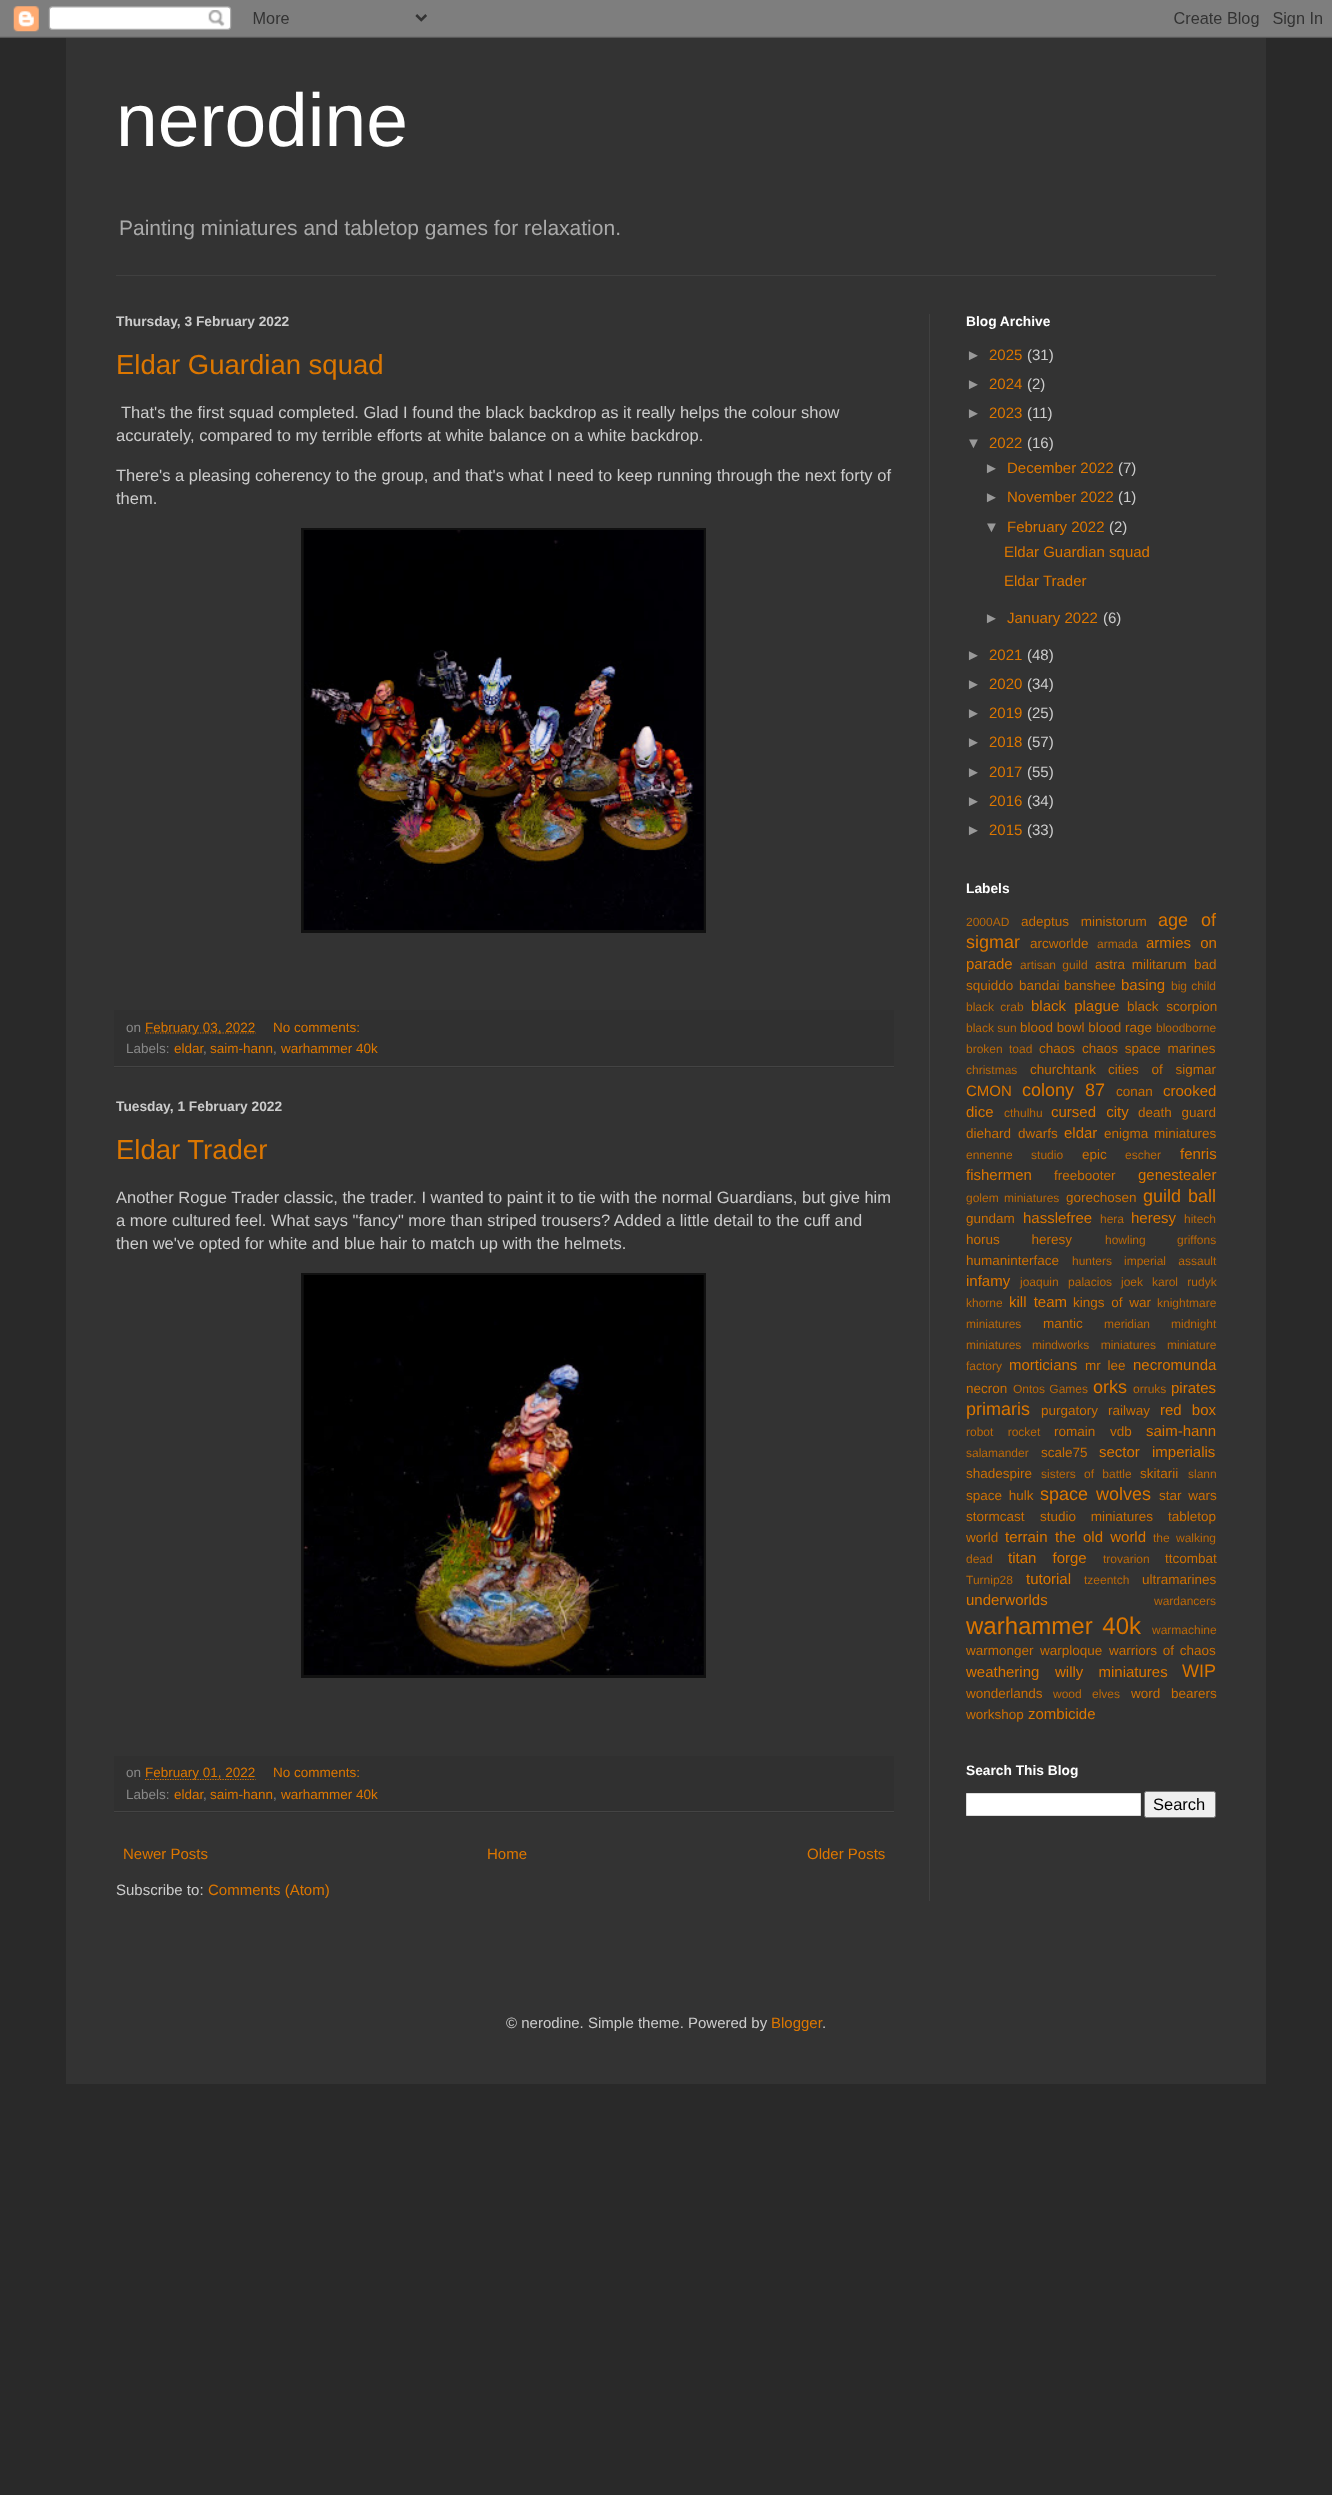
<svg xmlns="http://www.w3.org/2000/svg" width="1332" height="2495">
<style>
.a{font:75px Liberation Sans;fill:#fff}
.b{font:21px Liberation Sans;fill:#aaa}
.c{font:bold 13.75px Liberation Sans;fill:#ccc}
.d{font:27.5px Liberation Sans;fill:#d70}
.e{font:16.5px Liberation Sans;fill:#ccc}
.f{font:13.5px Liberation Sans;fill:#888}
.g{font:13.5px Liberation Sans;fill:#d70}
.h{font:15px Liberation Sans;fill:#d70}
.i{font:15px Liberation Sans;fill:#ccc}
.j{font:bold 13.75px Liberation Sans;fill:#fff}
.k{font:15px Liberation Sans;fill:#999}
.l{font:12px Liberation Sans;fill:#bb690a}
.m{font:13.5px Liberation Sans;fill:#cc7005}
.n{font:18px Liberation Sans;fill:#d70}
.o{font:24px Liberation Sans;fill:#d70}
.p{font:16.5px Liberation Sans;fill:#000}
</style>
<rect width="100%" height="100%" fill="#292929"/>
<image href="1.png" x="0" y="0" width="1332" height="38"/>
<path fill="#333" d="M66 38h1200v2046H66z"/>
<path fill="#404040" d="M116 275h1100v1H116z"/>
<path fill="#404040" d="M929 314h1v1587H929z"/>
<path fill="#111" d="M301 528h405v405H301z"/>
<image href="2.png" x="303" y="530" width="401" height="400"/>
<path fill="#303030" d="M114 1010h780v58H114z"/>
<path fill="#444" d="M114 1066h780v1H114z"/>
<path fill="none" stroke="#d70" stroke-width="1.2" stroke-dasharray="1.25 1.25" d="M145 1033h110.5"/>
<path fill="#111" d="M301 1273h405v405H301z"/>
<image href="3.png" x="303" y="1275" width="401" height="400"/>
<path fill="#303030" d="M114 1756h780v57H114z"/>
<path fill="#444" d="M114 1811h780v1H114z"/>
<path fill="none" stroke="#d70" stroke-width="1.2" stroke-dasharray="1.25 1.25" d="M145 1779.5h110.5"/>
<path fill="#fff" stroke="#ddd" d="M966.5 1793.5h174v22H966.5z"/>
<rect fill="#efefef" stroke="#767676" x="1144.5" y="1791.5" width="71" height="26" rx="2"/>
<text class="a" x="116" y="146">nerodine</text>
<text class="b" x="119" y="235">Painting miniatures and tabletop games for relaxation.</text>
<text class="c" x="116" y="326">Thursday, 3 February 2022</text>
<text class="d" x="116" y="374">Eldar Guardian squad</text>
<text class="e" x="121" y="418">That's the first squad completed. Glad I found the black backdrop as it really helps the colour show</text>
<text class="e" x="116" y="441">accurately, compared to my terrible efforts at white balance on a white backdrop.</text>
<text class="e" x="116" y="481">There's a pleasing coherency to the group, and that's what I need to keep running through the next forty of</text>
<text class="e" x="116" y="504">them.</text>
<text class="f" x="126" y="1032">on</text>
<text class="g" x="145" y="1032">February 03, 2022</text>
<text class="g" x="273" y="1032">No comments:</text>
<text class="f" x="126" y="1053">Labels:</text>
<text class="g" x="174" y="1053">eldar</text>
<text class="f" x="203" y="1053">,</text>
<text class="g" x="210" y="1053">saim-hann</text>
<text class="f" x="273" y="1053">,</text>
<text class="g" x="281" y="1053">warhammer 40k</text>
<text class="c" x="116" y="1111">Tuesday, 1 February 2022</text>
<text class="d" x="116" y="1159">Eldar Trader</text>
<text class="e" x="116" y="1203">Another Rogue Trader classic, the trader. I wanted to paint it to tie with the normal Guardians, but give him</text>
<text class="e" x="116" y="1226">a more cultured feel. What says "fancy" more than striped trousers? Added a little detail to the cuff and</text>
<text class="e" x="116" y="1249">then we've opted for white and blue hair to match up with the helmets.</text>
<text class="f" x="126" y="1777">on</text>
<text class="g" x="145" y="1777">February 01, 2022</text>
<text class="g" x="273" y="1777">No comments:</text>
<text class="f" x="126" y="1799">Labels:</text>
<text class="g" x="174" y="1799">eldar</text>
<text class="f" x="203" y="1799">,</text>
<text class="g" x="210" y="1799">saim-hann</text>
<text class="f" x="273" y="1799">,</text>
<text class="g" x="281" y="1799">warhammer 40k</text>
<text class="h" x="123" y="1859">Newer Posts</text>
<text class="h" x="487" y="1859">Home</text>
<text class="h" x="807" y="1859">Older Posts</text>
<text class="i" x="116" y="1895">Subscribe to:</text>
<text class="h" x="208" y="1895">Comments (Atom)</text>
<text class="j" x="966" y="326">Blog Archive</text>
<text class="k" x="966" y="360">►</text>
<text class="h" x="989" y="360">2025</text>
<text class="i" x="1027" y="360">(31)</text>
<text class="k" x="966" y="389">►</text>
<text class="h" x="989" y="389">2024</text>
<text class="i" x="1027" y="389">(2)</text>
<text class="k" x="966" y="418">►</text>
<text class="h" x="989" y="418">2023</text>
<text class="i" x="1027" y="418">(11)</text>
<text class="k" x="966" y="448">▼</text>
<text class="h" x="989" y="448">2022</text>
<text class="i" x="1027" y="448">(16)</text>
<text class="k" x="984" y="473">►</text>
<text class="h" x="1007" y="473">December 2022</text>
<text class="i" x="1118" y="473">(7)</text>
<text class="k" x="984" y="502">►</text>
<text class="h" x="1007" y="502">November 2022</text>
<text class="i" x="1118" y="502">(1)</text>
<text class="k" x="984" y="532">▼</text>
<text class="h" x="1007" y="532">February 2022</text>
<text class="i" x="1109" y="532">(2)</text>
<text class="h" x="1004" y="557">Eldar Guardian squad</text>
<text class="h" x="1004" y="586">Eldar Trader</text>
<text class="k" x="984" y="623">►</text>
<text class="h" x="1007" y="623">January 2022</text>
<text class="i" x="1103" y="623">(6)</text>
<text class="k" x="966" y="660">►</text>
<text class="h" x="989" y="660">2021</text>
<text class="i" x="1027" y="660">(48)</text>
<text class="k" x="966" y="689">►</text>
<text class="h" x="989" y="689">2020</text>
<text class="i" x="1027" y="689">(34)</text>
<text class="k" x="966" y="718">►</text>
<text class="h" x="989" y="718">2019</text>
<text class="i" x="1027" y="718">(25)</text>
<text class="k" x="966" y="747">►</text>
<text class="h" x="989" y="747">2018</text>
<text class="i" x="1027" y="747">(57)</text>
<text class="k" x="966" y="777">►</text>
<text class="h" x="989" y="777">2017</text>
<text class="i" x="1027" y="777">(55)</text>
<text class="k" x="966" y="806">►</text>
<text class="h" x="989" y="806">2016</text>
<text class="i" x="1027" y="806">(34)</text>
<text class="k" x="966" y="835">►</text>
<text class="h" x="989" y="835">2015</text>
<text class="i" x="1027" y="835">(33)</text>
<text class="j" x="966" y="893">Labels</text>
<text class="l" x="966" y="926">2000AD</text>
<text class="m" x="1021" y="926" word-spacing="8">adeptus ministorum</text>
<text class="n" x="1158" y="926" word-spacing="8">age of</text>
<text class="n" x="966" y="948">sigmar</text>
<text class="m" x="1030" y="948">arcworlde</text>
<text class="l" x="1097" y="948">armada</text>
<text class="h" x="1146" y="948" word-spacing="5">armies on</text>
<text class="h" x="966" y="969">parade</text>
<text class="l" x="1020" y="969" word-spacing="3">artisan guild</text>
<text class="m" x="1095" y="969" word-spacing="3">astra militarum</text>
<text class="m" x="1194" y="969">bad</text>
<text class="m" x="966" y="990">squiddo</text>
<text class="m" x="1019" y="990">bandai</text>
<text class="m" x="1064" y="990">banshee</text>
<text class="h" x="1121" y="990">basing</text>
<text class="l" x="1171" y="990" word-spacing="1">big child</text>
<text class="l" x="966" y="1011" word-spacing="3">black crab</text>
<text class="h" x="1031" y="1011" word-spacing="4">black plague</text>
<text class="m" x="1127" y="1011" word-spacing="4">black scorpion</text>
<text class="l" x="966" y="1032">black sun</text>
<text class="m" x="1020" y="1032">blood bowl blood rage</text>
<text class="l" x="1156" y="1032">bloodborne</text>
<text class="l" x="966" y="1053" word-spacing="3">broken toad</text>
<text class="m" x="1039" y="1053">chaos</text>
<text class="m" x="1082" y="1053" word-spacing="3">chaos space marines</text>
<text class="l" x="966" y="1074">christmas</text>
<text class="m" x="1030" y="1074">churchtank</text>
<text class="m" x="1108" y="1074" word-spacing="9">cities of sigmar</text>
<text class="h" x="966" y="1096">CMON</text>
<text class="n" x="1022" y="1096" word-spacing="6">colony 87</text>
<text class="m" x="1116" y="1096">conan</text>
<text class="h" x="1163" y="1096">crooked</text>
<text class="h" x="966" y="1117">dice</text>
<text class="l" x="1004" y="1117">cthulhu</text>
<text class="h" x="1051" y="1117" word-spacing="6">cursed city</text>
<text class="m" x="1138" y="1117" word-spacing="6">death guard</text>
<text class="m" x="966" y="1138">diehard</text>
<text class="m" x="1018" y="1138">dwarfs</text>
<text class="h" x="1064" y="1138">eldar</text>
<text class="m" x="1104" y="1138" word-spacing="2">enigma miniatures</text>
<text class="l" x="966" y="1159" word-spacing="15">ennenne studio</text>
<text class="m" x="1082" y="1159">epic</text>
<text class="l" x="1125" y="1159">escher</text>
<text class="h" x="1180" y="1159">fenris</text>
<text class="h" x="966" y="1180">fishermen</text>
<text class="m" x="1054" y="1180">freebooter</text>
<text class="h" x="1138" y="1180">genestealer</text>
<text class="l" x="966" y="1202" word-spacing="2">golem miniatures</text>
<text class="m" x="1066" y="1202">gorechosen</text>
<text class="n" x="1143" y="1202" word-spacing="2">guild ball</text>
<text class="m" x="966" y="1223">gundam</text>
<text class="h" x="1023" y="1223">hasslefree</text>
<text class="l" x="1100" y="1223">hera</text>
<text class="h" x="1131" y="1223">heresy</text>
<text class="l" x="1184" y="1223">hitech</text>
<text class="m" x="966" y="1244" word-spacing="28">horus heresy</text>
<text class="l" x="1105" y="1244" word-spacing="28">howling griffons</text>
<text class="m" x="966" y="1265">humaninterface</text>
<text class="l" x="1072" y="1265">hunters</text>
<text class="l" x="1124" y="1265" word-spacing="9">imperial assault</text>
<text class="h" x="966" y="1286">infamy</text>
<text class="l" x="1020" y="1286" word-spacing="6">joaquin palacios</text>
<text class="l" x="1121" y="1286">joek</text>
<text class="l" x="1152" y="1286" word-spacing="6">karol rudyk</text>
<text class="l" x="966" y="1307">khorne</text>
<text class="h" x="1009" y="1307" word-spacing="3">kill team</text>
<text class="m" x="1073" y="1307" word-spacing="3">kings of war</text>
<text class="l" x="1157" y="1307">knightmare</text>
<text class="l" x="966" y="1328">miniatures</text>
<text class="m" x="1043" y="1328">mantic</text>
<text class="l" x="1104" y="1328">meridian</text>
<text class="l" x="1171" y="1328">midnight</text>
<text class="l" x="966" y="1349">miniatures</text>
<text class="l" x="1032" y="1349" word-spacing="8">mindworks miniatures</text>
<text class="l" x="1167" y="1349">miniature</text>
<text class="l" x="966" y="1370">factory</text>
<text class="h" x="1009" y="1370">morticians</text>
<text class="m" x="1085" y="1370" word-spacing="3">mr lee</text>
<text class="h" x="1133" y="1370">necromunda</text>
<text class="m" x="966" y="1393">necron</text>
<text class="l" x="1013" y="1393" word-spacing="1">Ontos Games</text>
<text class="n" x="1093" y="1393">orks</text>
<text class="l" x="1133" y="1393">orruks</text>
<text class="h" x="1171" y="1393">pirates</text>
<text class="n" x="966" y="1415">primaris</text>
<text class="m" x="1041" y="1415">purgatory</text>
<text class="m" x="1108" y="1415">railway</text>
<text class="h" x="1160" y="1415" word-spacing="6">red box</text>
<text class="l" x="966" y="1436" word-spacing="11">robot rocket</text>
<text class="m" x="1054" y="1436" word-spacing="11">romain vdb</text>
<text class="h" x="1146" y="1436">saim-hann</text>
<text class="l" x="966" y="1457">salamander</text>
<text class="m" x="1041" y="1457">scale75</text>
<text class="h" x="1099" y="1457" word-spacing="8">sector imperialis</text>
<text class="m" x="966" y="1478">shadespire</text>
<text class="l" x="1041" y="1478" word-spacing="5">sisters of battle</text>
<text class="m" x="1140" y="1478">skitarii</text>
<text class="l" x="1188" y="1478">slann</text>
<text class="m" x="966" y="1500" word-spacing="3">space hulk</text>
<text class="n" x="1040" y="1500" word-spacing="3">space wolves</text>
<text class="m" x="1159" y="1500" word-spacing="3">star wars</text>
<text class="m" x="966" y="1521">stormcast</text>
<text class="m" x="1040" y="1521" word-spacing="11">studio miniatures</text>
<text class="m" x="1168" y="1521">tabletop</text>
<text class="m" x="966" y="1542">world</text>
<text class="h" x="1005" y="1542">terrain</text>
<text class="h" x="1055" y="1542" word-spacing="3">the old world</text>
<text class="l" x="1153" y="1542" word-spacing="3">the walking</text>
<text class="l" x="966" y="1563">dead</text>
<text class="h" x="1008" y="1563" word-spacing="12">titan forge</text>
<text class="l" x="1103" y="1563">trovarion</text>
<text class="m" x="1165" y="1563">ttcombat</text>
<text class="l" x="966" y="1584">Turnip28</text>
<text class="h" x="1026" y="1584">tutorial</text>
<text class="l" x="1084" y="1584">tzeentch</text>
<text class="m" x="1142" y="1584">ultramarines</text>
<text class="h" x="966" y="1605">underworlds</text>
<text class="l" x="1154" y="1605">wardancers</text>
<text class="o" x="966" y="1634" word-spacing="3">warhammer 40k</text>
<text class="l" x="1152" y="1634">warmachine</text>
<text class="m" x="966" y="1655">warmonger</text>
<text class="m" x="1040" y="1655">warploque</text>
<text class="m" x="1109" y="1655" word-spacing="2">warriors of chaos</text>
<text class="h" x="966" y="1677">weathering</text>
<text class="h" x="1055" y="1677" word-spacing="11">willy miniatures</text>
<text class="n" x="1182" y="1677">WIP</text>
<text class="m" x="966" y="1698">wonderlands</text>
<text class="l" x="1053" y="1698" word-spacing="7">wood elves</text>
<text class="m" x="1131" y="1698" word-spacing="7">word bearers</text>
<text class="m" x="966" y="1719">workshop</text>
<text class="h" x="1028" y="1719">zombicide</text>
<text class="j" x="966" y="1775">Search This Blog</text>
<text class="p" x="1153" y="1810">Search</text>
<text class="i" x="506" y="2028">© nerodine. Simple theme. Powered by</text>
<text class="h" x="771" y="2028">Blogger</text>
<text class="i" x="822" y="2028">.</text>
</svg>
